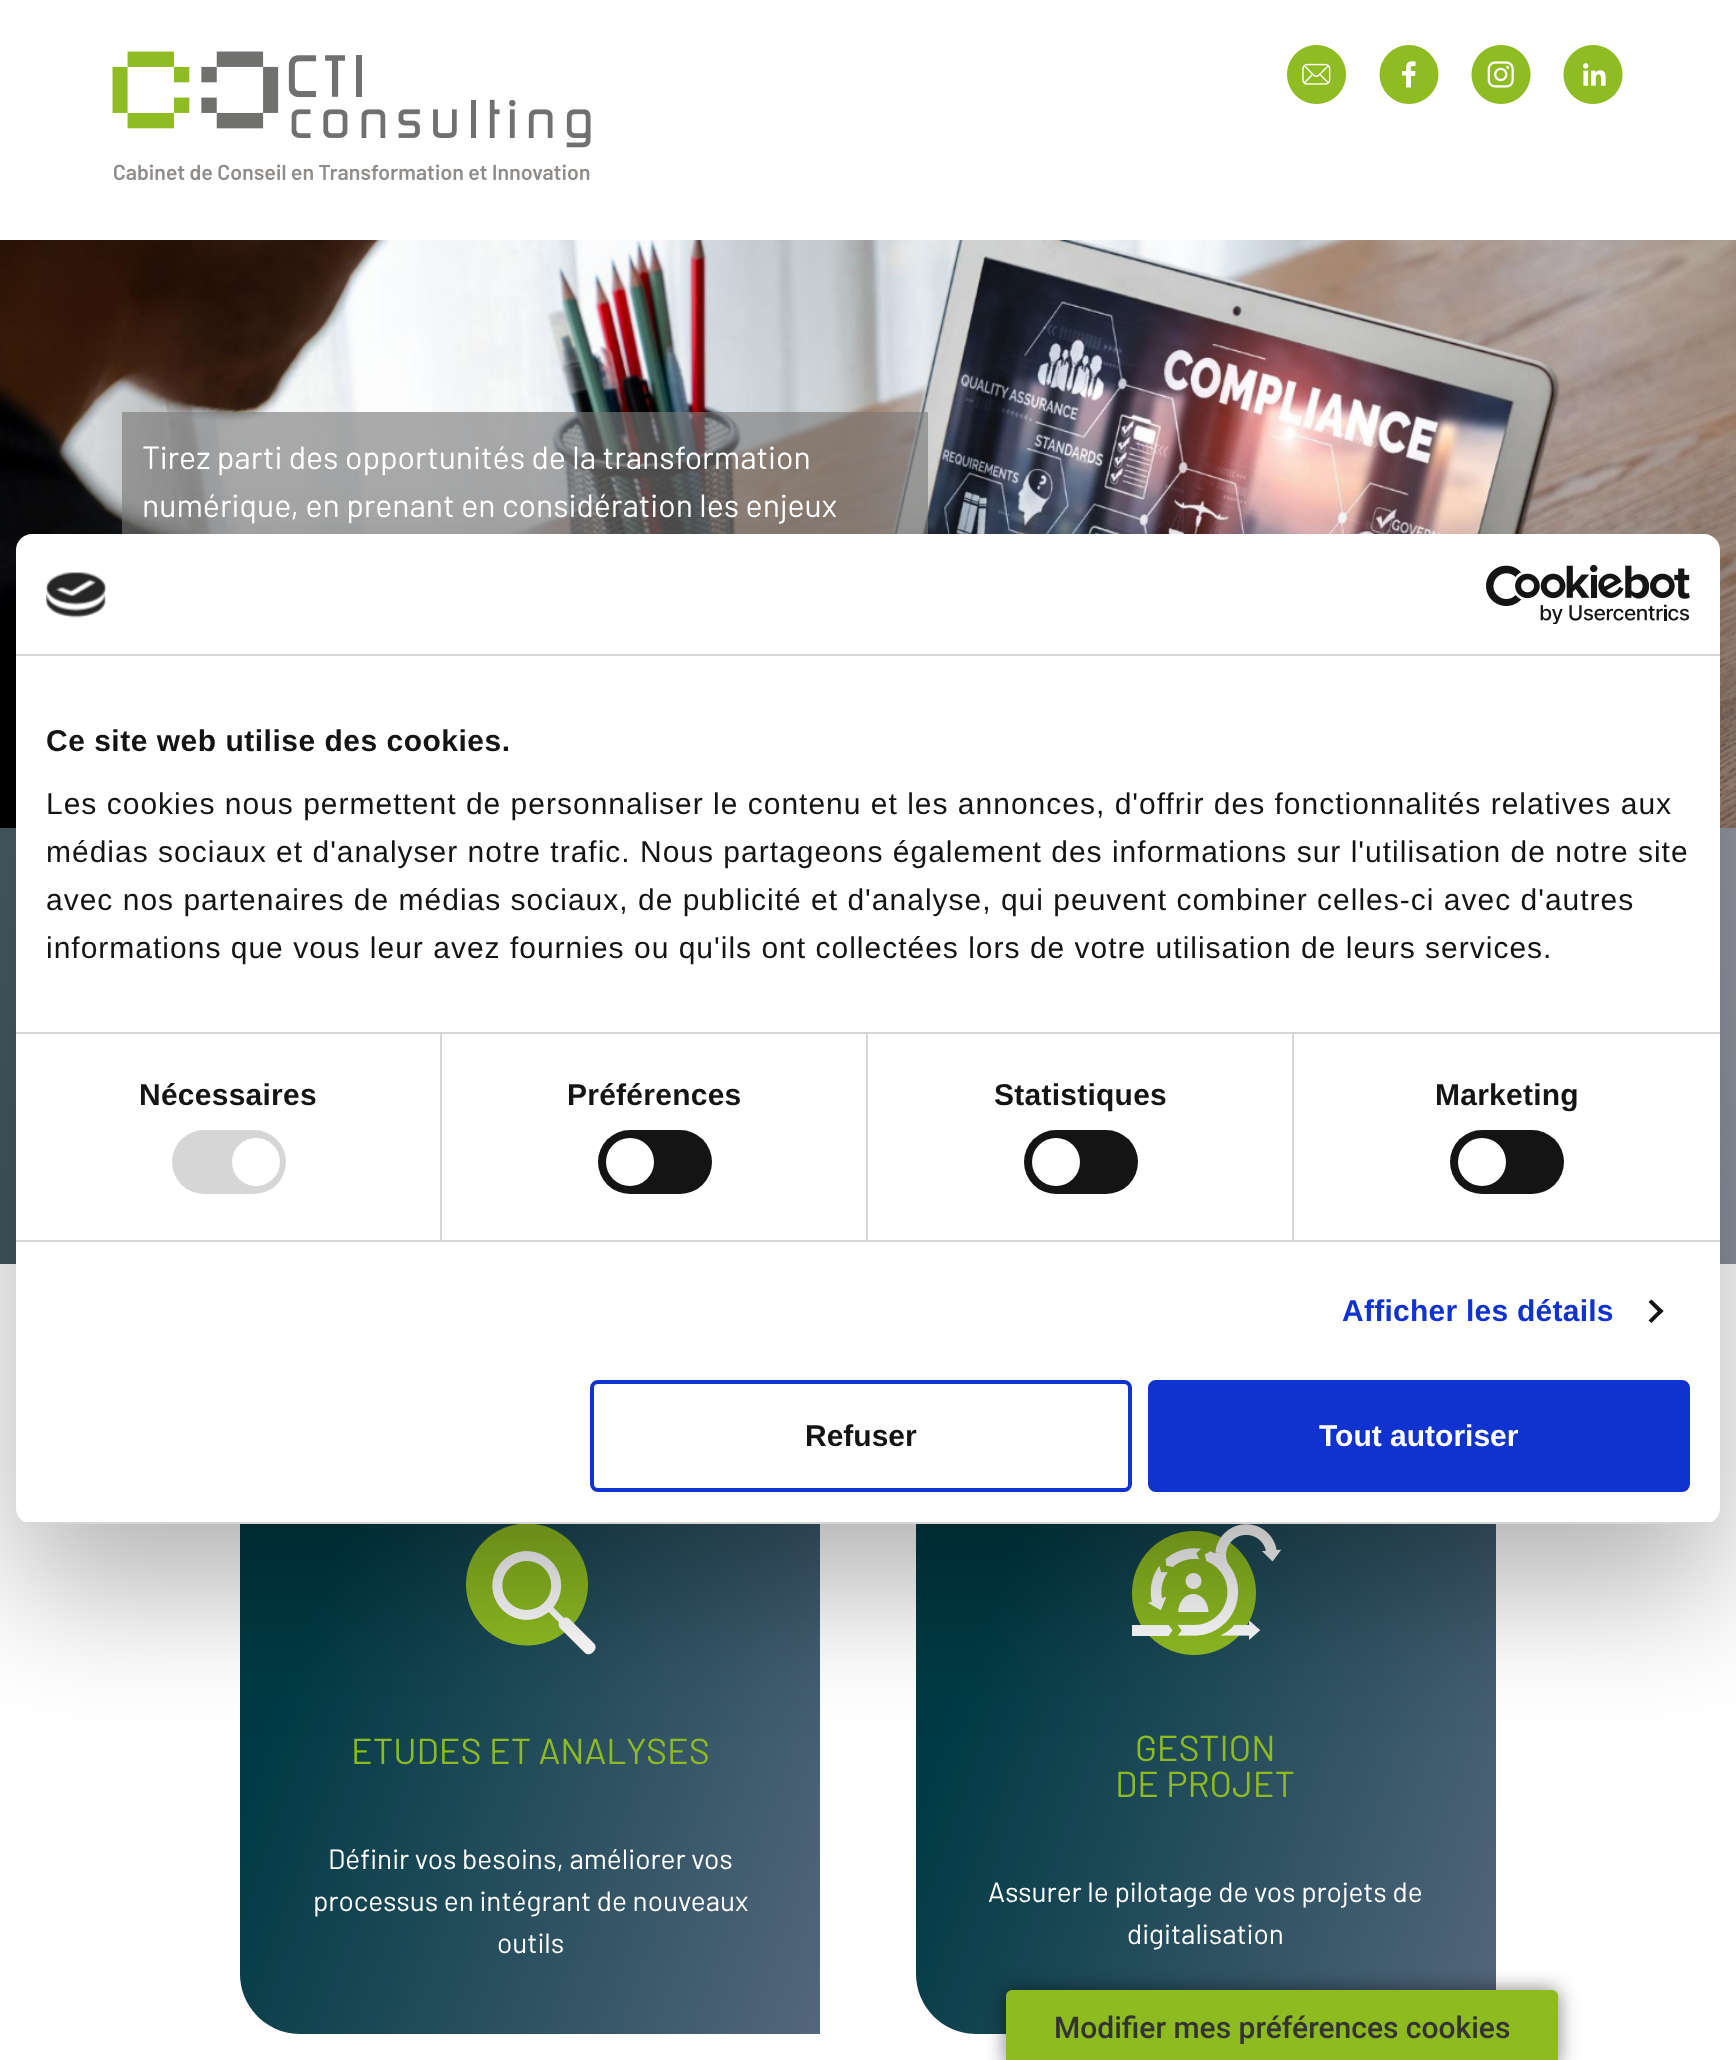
<svg xmlns="http://www.w3.org/2000/svg" width="1736" height="2060">
<style>
.a{font:32px Barlow;fill:#fff}
.b{font:36px Barlow;fill:#8ebb1f}
.c{font:28px Barlow;fill:#fff}
.d{font:bold 30px Liberation Sans;letter-spacing:0.5px;fill:#141414}
.e{font:30px Liberation Sans;letter-spacing:1px;fill:#141414}
.f{font:bold 30px Liberation Sans;letter-spacing:0.25px;fill:#141414}
.g{font:bold 30px Liberation Sans;letter-spacing:0.25px;fill:#1032cf}
.h{font:bold 30px Liberation Sans;fill:#141414}
.i{font:bold 30px Liberation Sans;fill:#fff}
.j{font:500 30px Roboto;fill:#333}
</style>
<defs>
<linearGradient id="g1" gradientUnits="userSpaceOnUse" x1="1613" y1="616" x2="123" y2="1476"><stop offset="0" stop-color="#979aa7"/><stop offset="1" stop-color="#3f5760"/></linearGradient>
<linearGradient id="g2" gradientUnits="userSpaceOnUse" x1="168" y1="1571" x2="892" y2="1835"><stop offset="0.19" stop-color="#003a44"/><stop offset="1" stop-color="#54667c"/></linearGradient>
<linearGradient id="g3" gradientUnits="userSpaceOnUse" x1="844" y1="1571" x2="1568" y2="1835"><stop offset="0.19" stop-color="#003a44"/><stop offset="1" stop-color="#54667c"/></linearGradient>
<clipPath id="clip1"><rect x="16" y="534" width="1704" height="990" rx="16"/></clipPath>
</defs>
<rect width="100%" height="100%" fill="#fff"/>
<image href="1.png" x="112" y="51" width="479" height="130"/>
<image href="2.png" x="1287" y="45" width="59" height="59"/>
<circle fill="#8fbc22" cx="1409" cy="74.5" r="29.5"/>
<path fill="#fff" d="M1413 66h2.5v-4.5c-8.5-1-9.5 2-9.5 9.5h-4v4.5h4v12h5v-11.5h4l.5-5h-4.5c0-2-1-5 2-5z"/>
<image href="3.png" x="1471" y="45" width="60" height="59"/>
<image href="4.png" x="1563" y="45" width="60" height="59"/>
<image href="5.png" x="0" y="240" width="1736" height="588"/>
<path fill="#7a7a7aa1" d="M122 412h806v122H122z"/>
<path fill="url(#g1)" d="M0 828h1736v436H0z"/>
<path fill="url(#g2)" d="M240 1372h520c33 0 60 27 60 60v602h-520c-33 0-60-27-60-60z"/>
<image href="6.png" x="466" y="1524" width="130" height="131"/>
<path fill="url(#g3)" d="M916 1372h520c33 0 60 27 60 60v602h-520c-33 0-60-27-60-60z"/>
<image href="7.png" x="1132" y="1524" width="150" height="131"/>
<rect fill="#0000004d" filter="blur(68px)" x="16" y="598" width="1704" height="990" rx="16"/>
<rect fill="#fff" x="16" y="534" width="1704" height="990" rx="16"/>
<path fill="#d6d6d6" d="M16 654h1704v2H16z"/>
<image href="8.png" x="46" y="572" width="60" height="46"/>
<image href="9.png" x="1486" y="564" width="204" height="60"/>
<path fill="#d6d6d6" d="M16 1032h1704v2H16z"/>
<path fill="#d6d6d6" d="M16 1240h1704v2H16z"/>
<path fill="#d6d6d6" d="M440 1034h2v206H440z"/>
<rect fill="#d6d6d6" x="172" y="1130" width="114" height="64" rx="32"/>
<circle fill="#fff" cx="256" cy="1162" r="24"/>
<path fill="#d6d6d6" d="M866 1034h2v206H866z"/>
<rect fill="#141414" x="598" y="1130" width="114" height="64" rx="32"/>
<circle fill="#fff" cx="630" cy="1162" r="24"/>
<path fill="#d6d6d6" d="M1292 1034h2v206H1292z"/>
<rect fill="#141414" x="1024" y="1130" width="114" height="64" rx="32"/>
<circle fill="#fff" cx="1056" cy="1162" r="24"/>
<rect fill="#141414" x="1450" y="1130" width="114" height="64" rx="32"/>
<circle fill="#fff" cx="1482" cy="1162" r="24"/>
<path fill="#141414" d="M1651.5 1299.5l12 11.5l-3 3l-12-12z"/>
<path fill="#141414" d="M1660.5 1308.5l3 2.5l-12 12l-3-2.5z"/>
<g clip-path="url(#clip1)">
<path fill="#d6d6d6" d="M16 1522h1704v2H16z"/>
</g>
<rect fill="none" stroke="#1032cf" stroke-width="4" x="592" y="1382" width="538" height="108" rx="6"/>
<rect fill="#1032cf" stroke="#1032cf" stroke-width="4" x="1150" y="1382" width="538" height="108" rx="6"/>
<rect fill="#00000080" filter="blur(10px)" x="1006" y="1990" width="552" height="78" rx="6"/>
<rect fill="#8ebb1f" x="1006" y="1990" width="552" height="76" rx="6"/>
<text class="a" x="142" y="469">Tirez parti des opportunités de la transformation</text>
<text class="a" x="142" y="517">numérique, en prenant en considération les enjeux</text>
<text class="b" x="351" y="1764">ETUDES ET ANALYSES</text>
<text class="c" x="328" y="1869">Définir vos besoins, améliorer vos</text>
<text class="c" x="313" y="1911">processus en intégrant de nouveaux</text>
<text class="c" x="497" y="1953">outils</text>
<text class="b" x="1135" y="1761">GESTION</text>
<text class="b" x="1115" y="1797">DE PROJET</text>
<text class="c" x="988" y="1902">Assurer le pilotage de vos projets de</text>
<text class="c" x="1127" y="1944">digitalisation</text>
<text class="d" x="46" y="751">Ce site web utilise des cookies.</text>
<text class="e" x="46" y="814">Les cookies nous permettent de personnaliser le contenu et les annonces, d'offrir des fonctionnalités relatives aux</text>
<text class="e" x="46" y="862">médias sociaux et d'analyser notre trafic. Nous partageons également des informations sur l'utilisation de notre site</text>
<text class="e" x="46" y="910">avec nos partenaires de médias sociaux, de publicité et d'analyse, qui peuvent combiner celles-ci avec d'autres</text>
<text class="e" x="46" y="958">informations que vous leur avez fournies ou qu'ils ont collectées lors de votre utilisation de leurs services.</text>
<text class="f" x="139" y="1105">Nécessaires</text>
<text class="f" x="567" y="1105">Préférences</text>
<text class="f" x="994" y="1105">Statistiques</text>
<text class="f" x="1435" y="1105">Marketing</text>
<text class="g" x="1342" y="1321">Afficher les détails</text>
<text class="h" x="805" y="1446">Refuser</text>
<text class="i" x="1319" y="1446">Tout autoriser</text>
<text class="j" x="1054" y="2038">Modifier mes préférences cookies</text>
</svg>
